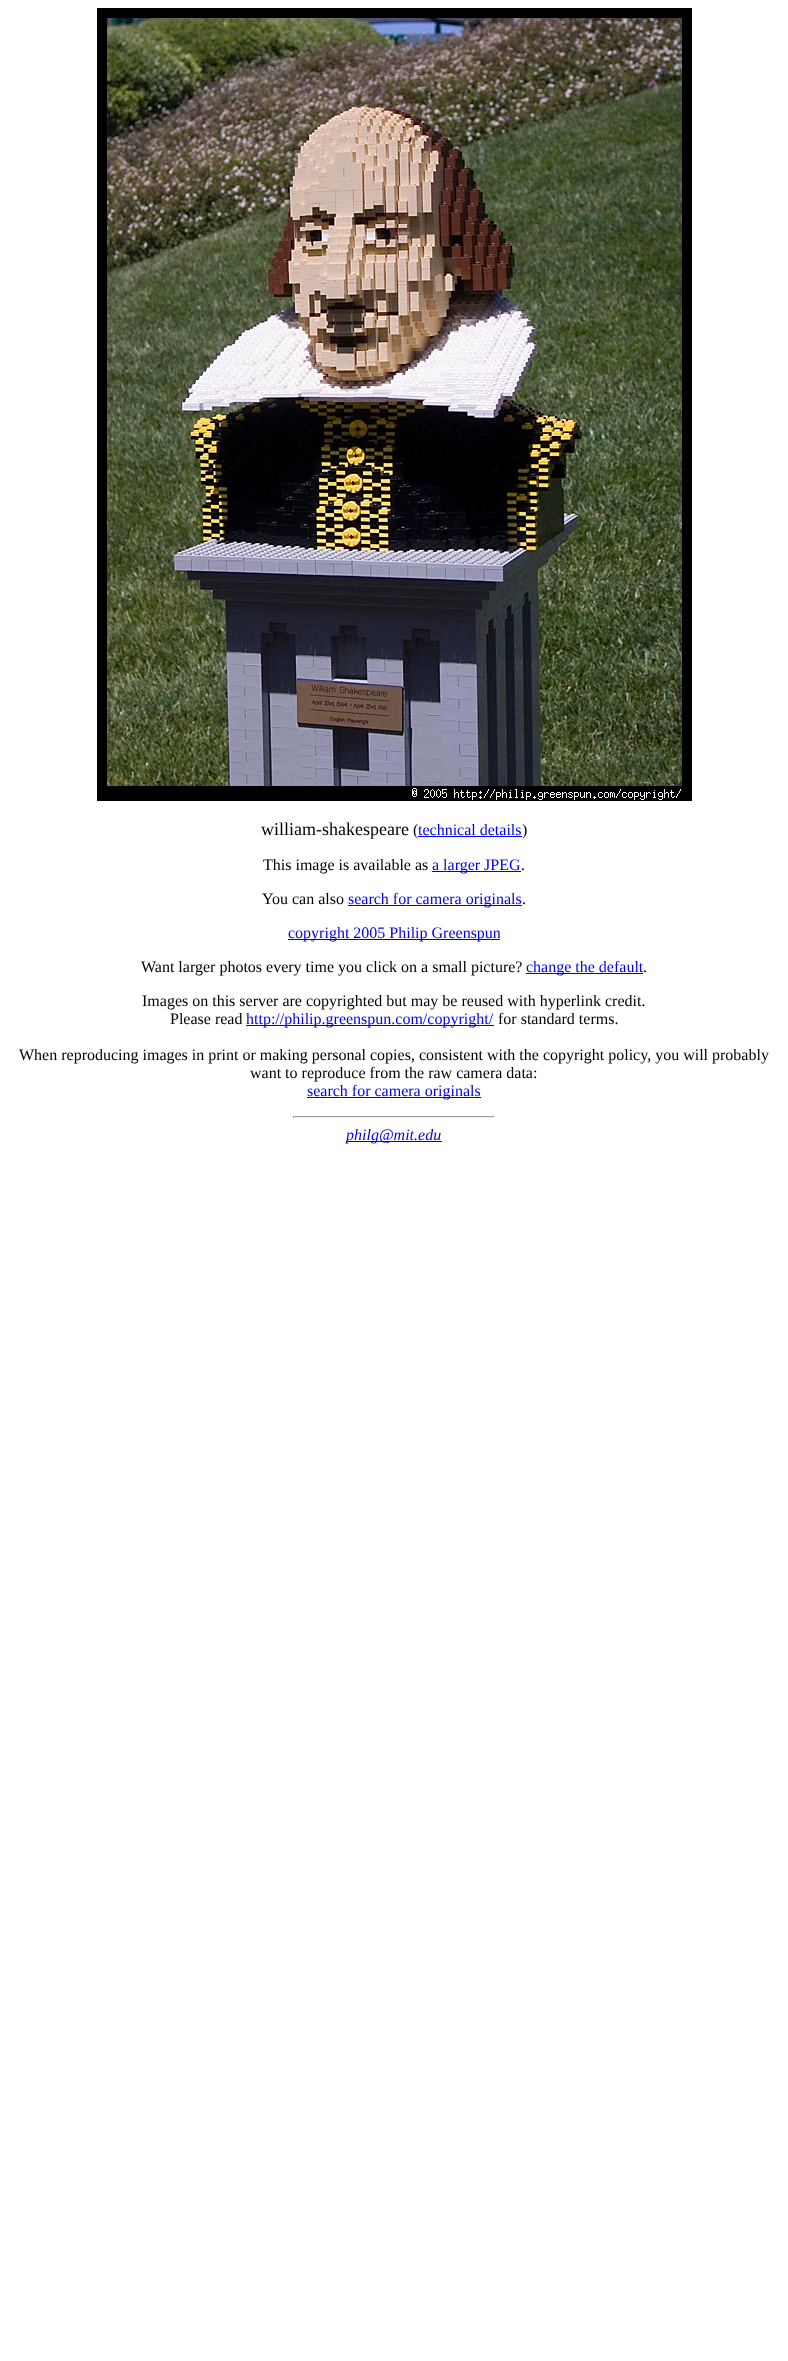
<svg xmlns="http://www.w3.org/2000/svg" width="788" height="2361">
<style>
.a{font:18px Liberation Serif;fill:#000}
.b{font:16px Liberation Serif;fill:#000}
.c{font:16px Liberation Serif;fill:#00e}
.d{font:italic 16px Liberation Serif;fill:#00e}
</style>
<rect width="100%" height="100%" fill="#fff"/>
<image href="1.png" x="97" y="8" width="595" height="793"/>
<path fill="#00e" d="M418 836h104v1H418z"/>
<path fill="#00e" d="M432 871h89v1H432z"/>
<path fill="#00e" d="M348 905h174v1H348z"/>
<path fill="#00e" d="M288 939h212v1H288z"/>
<path fill="#00e" d="M526 973h117v1H526z"/>
<path fill="#00e" d="M246 1025h248v1H246z"/>
<path fill="#00e" d="M307 1097h174v1H307z"/>
<path fill="#9f9f9f" d="M293 1116h202v1H293z"/>
<path fill="#eee" d="M494 1116h1v2H494z"/>
<path fill="#eee" d="M293 1117h202v1H293z"/>
<path fill="#9f9f9f" d="M293 1116h1v2H293z"/>
<path fill="#00e" d="M346 1141h96v1H346z"/>
<text class="a" x="261" y="835">william-shakespeare</text>
<text class="b" x="413" y="835">(</text>
<text class="c" x="418" y="835">technical details</text>
<text class="b" x="522" y="835">)</text>
<text class="b" x="263" y="870">This image is available as</text>
<text class="c" x="432" y="870">a larger JPEG</text>
<text class="b" x="521" y="870">.</text>
<text class="b" x="262" y="904">You can also</text>
<text class="c" x="348" y="904">search for camera originals</text>
<text class="b" x="522" y="904">.</text>
<text class="c" x="288" y="938">copyright 2005 Philip Greenspun</text>
<text class="b" x="141" y="972">Want larger photos every time you click on a small picture?</text>
<text class="c" x="526" y="972">change the default</text>
<text class="b" x="643" y="972">.</text>
<text class="b" x="142" y="1006">Images on this server are copyrighted but may be reused with hyperlink credit.</text>
<text class="b" x="170" y="1024">Please read</text>
<text class="c" x="246" y="1024">http://philip.greenspun.com/copyright/</text>
<text class="b" x="498" y="1024">for standard terms.</text>
<text class="b" x="19" y="1060">When reproducing images in print or making personal copies, consistent with the copyright policy, you will probably</text>
<text class="b" x="250" y="1078">want to reproduce from the raw camera data:</text>
<text class="c" x="307" y="1096">search for camera originals</text>
<text class="d" x="346" y="1140">philg@mit.edu</text>
</svg>
